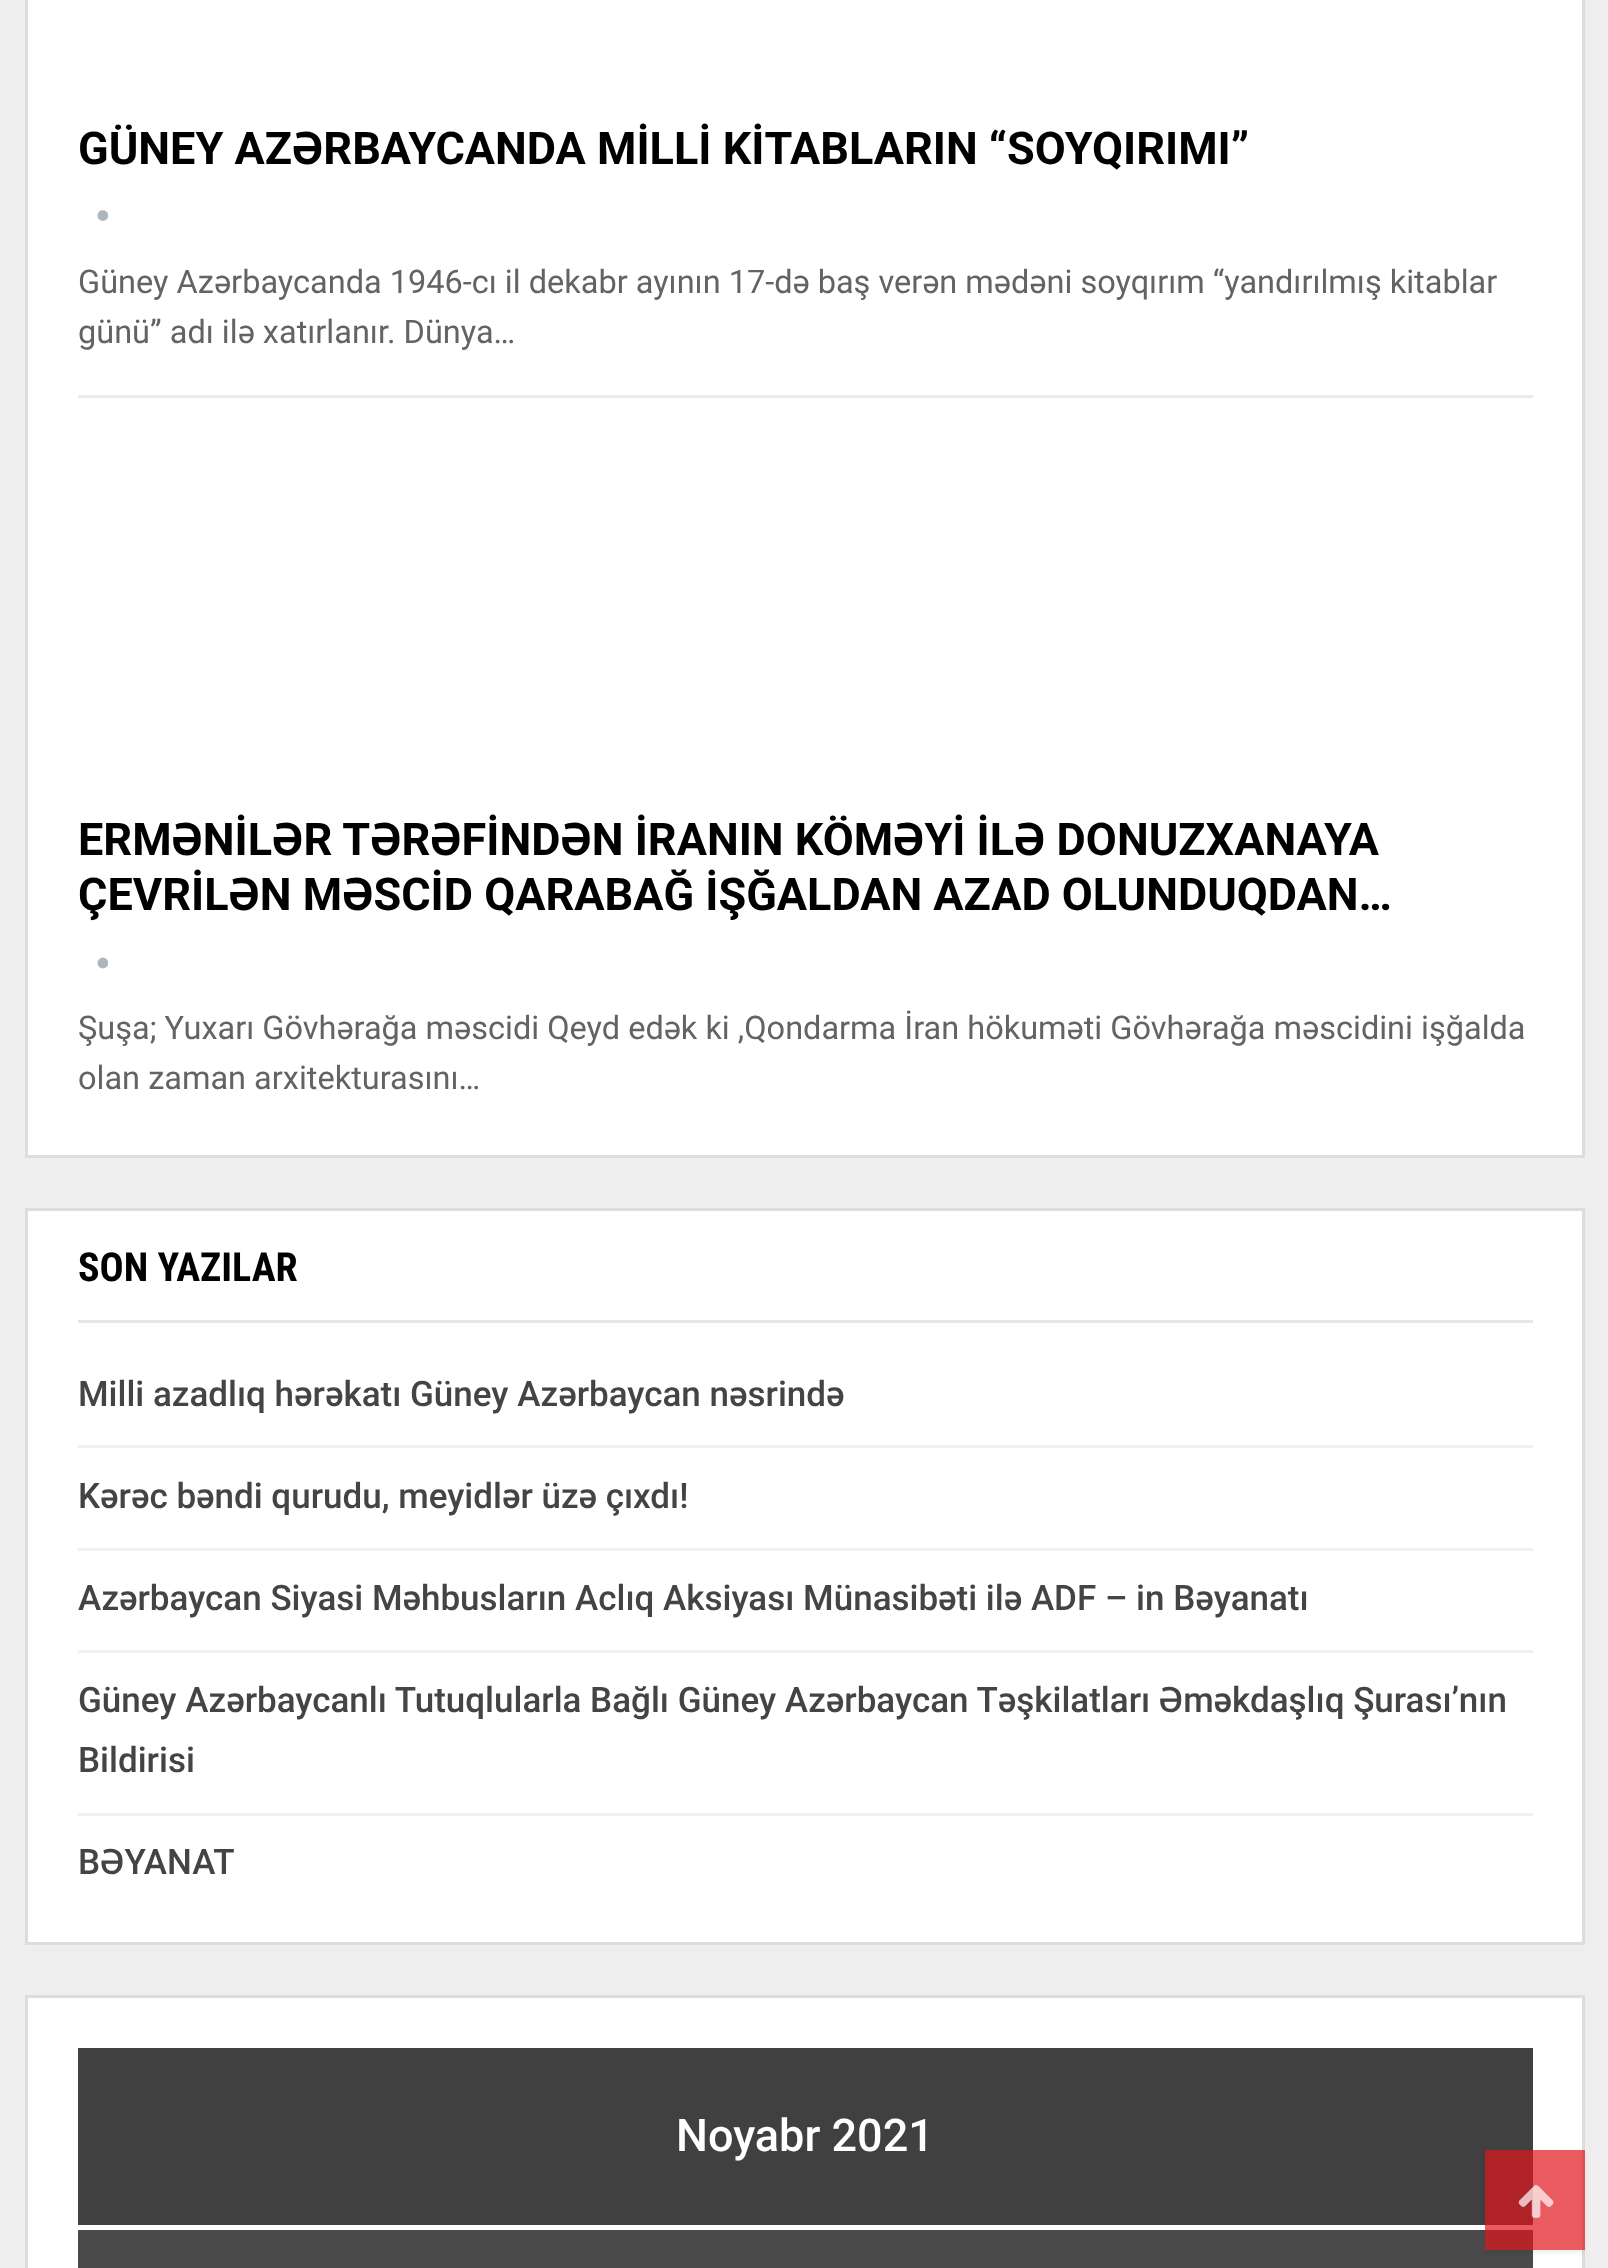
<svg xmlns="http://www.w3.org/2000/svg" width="1608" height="2268">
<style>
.a{font:bold 45px Roboto;fill:#000}
.b{font:32.5px Roboto;fill:#636363}
.c{font:bold 40px Roboto Condensed;fill:#000}
.d{font:500 35px Roboto;fill:#444}
.e{font:500 45px Roboto;fill:#fff}
</style>
<defs>
<clipPath id="clip1"><path d="M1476 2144h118v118h-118zm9 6h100v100h-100z" clip-rule="evenodd"/></clipPath>
</defs>
<rect width="100%" height="100%" fill="#eee"/>
<path fill="#fff" stroke="#ddd" stroke-width="3" d="M26.5 -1.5h1557v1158H26.5z"/>
<path fill="#ebebeb" d="M78 395h1455v3H78z"/>
<image href="1.png" x="97" y="210" width="11" height="11"/>
<image href="2.png" x="97" y="957" width="11" height="12"/>
<path fill="#fff" stroke="#ddd" stroke-width="3" d="M26.5 1209.5h1557v734H26.5z"/>
<path fill="#e6e6e6" d="M78 1320h1455v3H78z"/>
<path fill="#f0f0f0" d="M78 1445h1455v3H78z"/>
<path fill="#f0f0f0" d="M78 1548h1455v3H78z"/>
<path fill="#f0f0f0" d="M78 1650h1455v3H78z"/>
<path fill="#f0f0f0" d="M78 1813h1455v3H78z"/>
<path fill="#fff" stroke="#ddd" stroke-width="3" d="M26.5 1996.5h1557v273H26.5z"/>
<path fill="#404040" d="M78 2048h1455v177H78z"/>
<path fill="#4a4a4a" d="M78 2230h1455v38H78z"/>
<g clip-path="url(#clip1)">
<path fill="#0000000f" filter="blur(2.5px)" d="M1485 2153h100v100H1485z"/>
</g>
<path fill="#df161eb3" d="M1485 2150h100v100H1485z"/>
<image href="3.png" x="1518" y="2185" width="36" height="33"/>
<text class="a" x="78" y="164">GÜNEY AZƏRBAYCANDA MİLLİ KİTABLARIN “SOYQIRIMI”</text>
<text class="b" x="78" y="293">Güney Azərbaycanda 1946-cı il dekabr ayının 17-də baş verən mədəni soyqırım “yandırılmış kitablar</text>
<text class="b" x="78" y="343">günü” adı ilə xatırlanır. Dünya…</text>
<text class="a" x="78" y="855">ERMƏNİLƏR TƏRƏFİNDƏN İRANIN KÖMƏYİ İLƏ DONUZXANAYA</text>
<text class="a" x="78" y="910">ÇEVRİLƏN MƏSCİD QARABAĞ İŞĞALDAN AZAD OLUNDUQDAN…</text>
<text class="b" x="78" y="1039">Şuşa; Yuxarı Gövhərağa məscidi Qeyd edək ki ,Qondarma İran hökuməti Gövhərağa məscidini işğalda</text>
<text class="b" x="78" y="1089">olan zaman arxitekturasını…</text>
<text class="c" x="78" y="1281">SON YAZILAR</text>
<text class="d" x="78" y="1406">Milli azadlıq hərəkatı Güney Azərbaycan nəsrində</text>
<text class="d" x="78" y="1508">Kərəc bəndi qurudu, meyidlər üzə çıxdı!</text>
<text class="d" x="78" y="1610">Azərbaycan Siyasi Məhbusların Aclıq Aksiyası Münasibəti ilə ADF – in Bəyanatı</text>
<text class="d" x="78" y="1712">Güney Azərbaycanlı Tutuqlularla Bağlı Güney Azərbaycan Təşkilatları Əməkdaşlıq Şurası’nın</text>
<text class="d" x="78" y="1772">Bildirisi</text>
<text class="d" x="78" y="1874">BƏYANAT</text>
<text class="e" x="676" y="2151">Noyabr 2021</text>
</svg>
